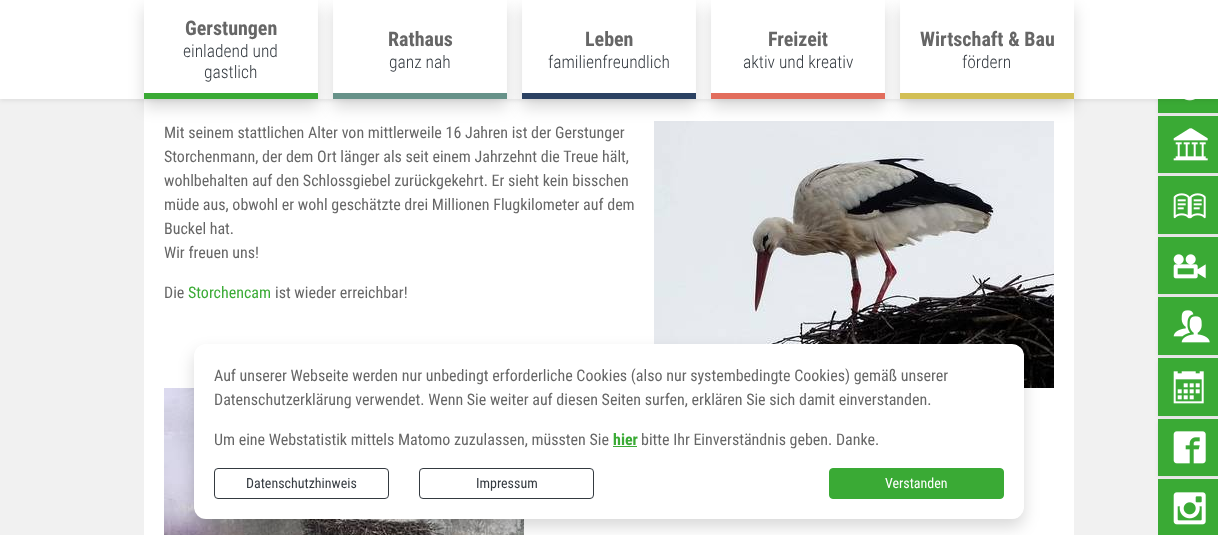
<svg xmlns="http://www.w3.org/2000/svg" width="1218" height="535">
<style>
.a{font:bold 20px Roboto Condensed;fill:#666}
.b{font:300 17.5px Roboto Condensed;fill:#343a40}
.c{font:16px Roboto Condensed;fill:#666}
.d{font:16px Roboto Condensed;fill:#3aaa35}
.e{font:bold 16px Roboto Condensed;fill:#3aaa35}
.f{font:14px Roboto Condensed;fill:#343a40}
.g{font:14px Roboto Condensed;fill:#fff}
</style>
<defs>
<clipPath id="clip1"><path d="M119 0h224v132h-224zm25 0h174v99h-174z" clip-rule="evenodd"/></clipPath>
<clipPath id="clip2"><path d="M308 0h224v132h-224zm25 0h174v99h-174z" clip-rule="evenodd"/></clipPath>
<clipPath id="clip3"><path d="M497 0h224v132h-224zm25 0h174v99h-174z" clip-rule="evenodd"/></clipPath>
<clipPath id="clip4"><path d="M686 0h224v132h-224zm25 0h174v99h-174z" clip-rule="evenodd"/></clipPath>
<clipPath id="clip5"><path d="M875 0h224v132h-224zm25 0h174v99h-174z" clip-rule="evenodd"/></clipPath>
</defs>
<rect width="100%" height="100%" fill="#f1f1f1"/>
<path fill="#00000012" filter="blur(2px)" d="M1158 57h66v58H1158z"/>
<path fill="#3aaa35" d="M1158 99h60v14H1158z"/>
<image href="1.png" x="1184" y="99" width="11" height="2"/>
<path fill="#fff" d="M144 99h930v436H144z"/>
<path fill="#00000012" filter="blur(2px)" d="M0 2h1218v99H0z"/>
<path fill="#fff" d="M0 0h1218v99H0z"/>
<g clip-path="url(#clip1)">
<path fill="#00000026" filter="blur(8px)" d="M144 8h174v99H144z"/>
</g>
<g clip-path="url(#clip2)">
<path fill="#00000026" filter="blur(8px)" d="M333 8h174v99H333z"/>
</g>
<path fill="#3aaa35" d="M144 93h174v6H144z"/>
<image href="9.png" x="654" y="121" width="400" height="267"/>
<g clip-path="url(#clip3)">
<path fill="#00000026" filter="blur(8px)" d="M522 8h174v99H522z"/>
</g>
<path fill="#679289" d="M333 93h174v6H333z"/>
<g clip-path="url(#clip4)">
<path fill="#00000026" filter="blur(8px)" d="M711 8h174v99H711z"/>
</g>
<path fill="#2b4162" d="M522 93h174v6H522z"/>
<g clip-path="url(#clip5)">
<path fill="#00000026" filter="blur(8px)" d="M900 8h174v99H900z"/>
</g>
<path fill="#e26d5c" d="M711 93h174v6H711z"/>
<path fill="#d2bf55" d="M900 93h174v6H900z"/>
<path fill="#00000012" filter="blur(2px)" d="M1158 118h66v57H1158z"/>
<path fill="#3aaa35" d="M1158 116h60v57H1158z"/>
<image href="2.png" x="1173" y="128" width="35" height="33"/>
<path fill="#00000012" filter="blur(2px)" d="M1158 178h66v58H1158z"/>
<path fill="#3aaa35" d="M1158 176h60v58H1158z"/>
<image href="3.png" x="1173" y="193" width="33" height="26"/>
<path fill="#00000012" filter="blur(2px)" d="M1158 239h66v57H1158z"/>
<path fill="#3aaa35" d="M1158 237h60v57H1158z"/>
<image href="4.png" x="1173" y="254" width="33" height="25"/>
<path fill="#00000012" filter="blur(2px)" d="M1158 299h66v58H1158z"/>
<path fill="#3aaa35" d="M1158 297h60v58H1158z"/>
<image href="5.png" x="1173" y="310" width="37" height="33"/>
<path fill="#00000012" filter="blur(2px)" d="M1158 360h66v58H1158z"/>
<path fill="#3aaa35" d="M1158 358h60v58H1158z"/>
<image href="6.png" x="1173" y="371" width="31" height="33"/>
<path fill="#00000012" filter="blur(2px)" d="M1158 421h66v57H1158z"/>
<path fill="#3aaa35" d="M1158 419h60v57H1158z"/>
<image href="7.png" x="1173" y="431" width="33" height="33"/>
<path fill="#3aaa35" d="M1158 479h60v56H1158z"/>
<image href="8.png" x="1173" y="492" width="33" height="33"/>
<image href="10.png" x="164" y="388" width="360" height="147"/>
<rect fill="#00000026" filter="blur(8px)" x="194" y="352" width="830" height="175" rx="12"/>
<rect fill="#fff" x="194" y="344" width="830" height="175" rx="12"/>
<path fill="#3aaa35" d="M613 446h24v1H613z"/>
<rect fill="none" stroke="#343a40" x="214.5" y="468.5" width="174" height="30" rx="3.5"/>
<rect fill="none" stroke="#343a40" x="419.5" y="468.5" width="174" height="30" rx="3.5"/>
<rect fill="#3aaa35" stroke="#3aaa35" x="829.5" y="468.5" width="174" height="30" rx="3.5"/>
<text class="a" x="185" y="35">Gerstungen</text>
<text class="b" x="183" y="57">einladend und</text>
<text class="b" x="204" y="78">gastlich</text>
<text class="a" x="388" y="46">Rathaus</text>
<text class="b" x="389" y="68">ganz nah</text>
<text class="a" x="585" y="46">Leben</text>
<text class="b" x="548" y="68">familienfreundlich</text>
<text class="a" x="768" y="46">Freizeit</text>
<text class="b" x="743" y="68">aktiv und kreativ</text>
<text class="a" x="920" y="46">Wirtschaft &amp; Bau</text>
<text class="b" x="962" y="68">fördern</text>
<text class="c" x="164" y="138">Mit seinem stattlichen Alter von mittlerweile 16 Jahren ist der Gerstunger</text>
<text class="c" x="164" y="162">Storchenmann, der dem Ort länger als seit einem Jahrzehnt die Treue hält,</text>
<text class="c" x="164" y="186">wohlbehalten auf den Schlossgiebel zurückgekehrt. Er sieht kein bisschen</text>
<text class="c" x="164" y="210">müde aus, obwohl er wohl geschätzte drei Millionen Flugkilometer auf dem</text>
<text class="c" x="164" y="234">Buckel hat.</text>
<text class="c" x="164" y="258">Wir freuen uns!</text>
<text class="c" x="164" y="298">Die</text>
<text class="d" x="188" y="298">Storchencam</text>
<text class="c" x="275" y="298">ist wieder erreichbar!</text>
<text class="c" x="214" y="381">Auf unserer Webseite werden nur unbedingt erforderliche Cookies (also nur systembedingte Cookies) gemäß unserer</text>
<text class="c" x="214" y="405">Datenschutzerklärung verwendet. Wenn Sie weiter auf diesen Seiten surfen, erklären Sie sich damit einverstanden.</text>
<text class="c" x="214" y="445">Um eine Webstatistik mittels Matomo zuzulassen, müssten Sie</text>
<text class="e" x="613" y="445">hier</text>
<text class="c" x="641" y="445">bitte Ihr Einverständnis geben. Danke.</text>
<text class="f" x="246" y="488">Datenschutzhinweis</text>
<text class="f" x="476" y="488">Impressum</text>
<text class="g" x="885" y="488">Verstanden</text>
</svg>
